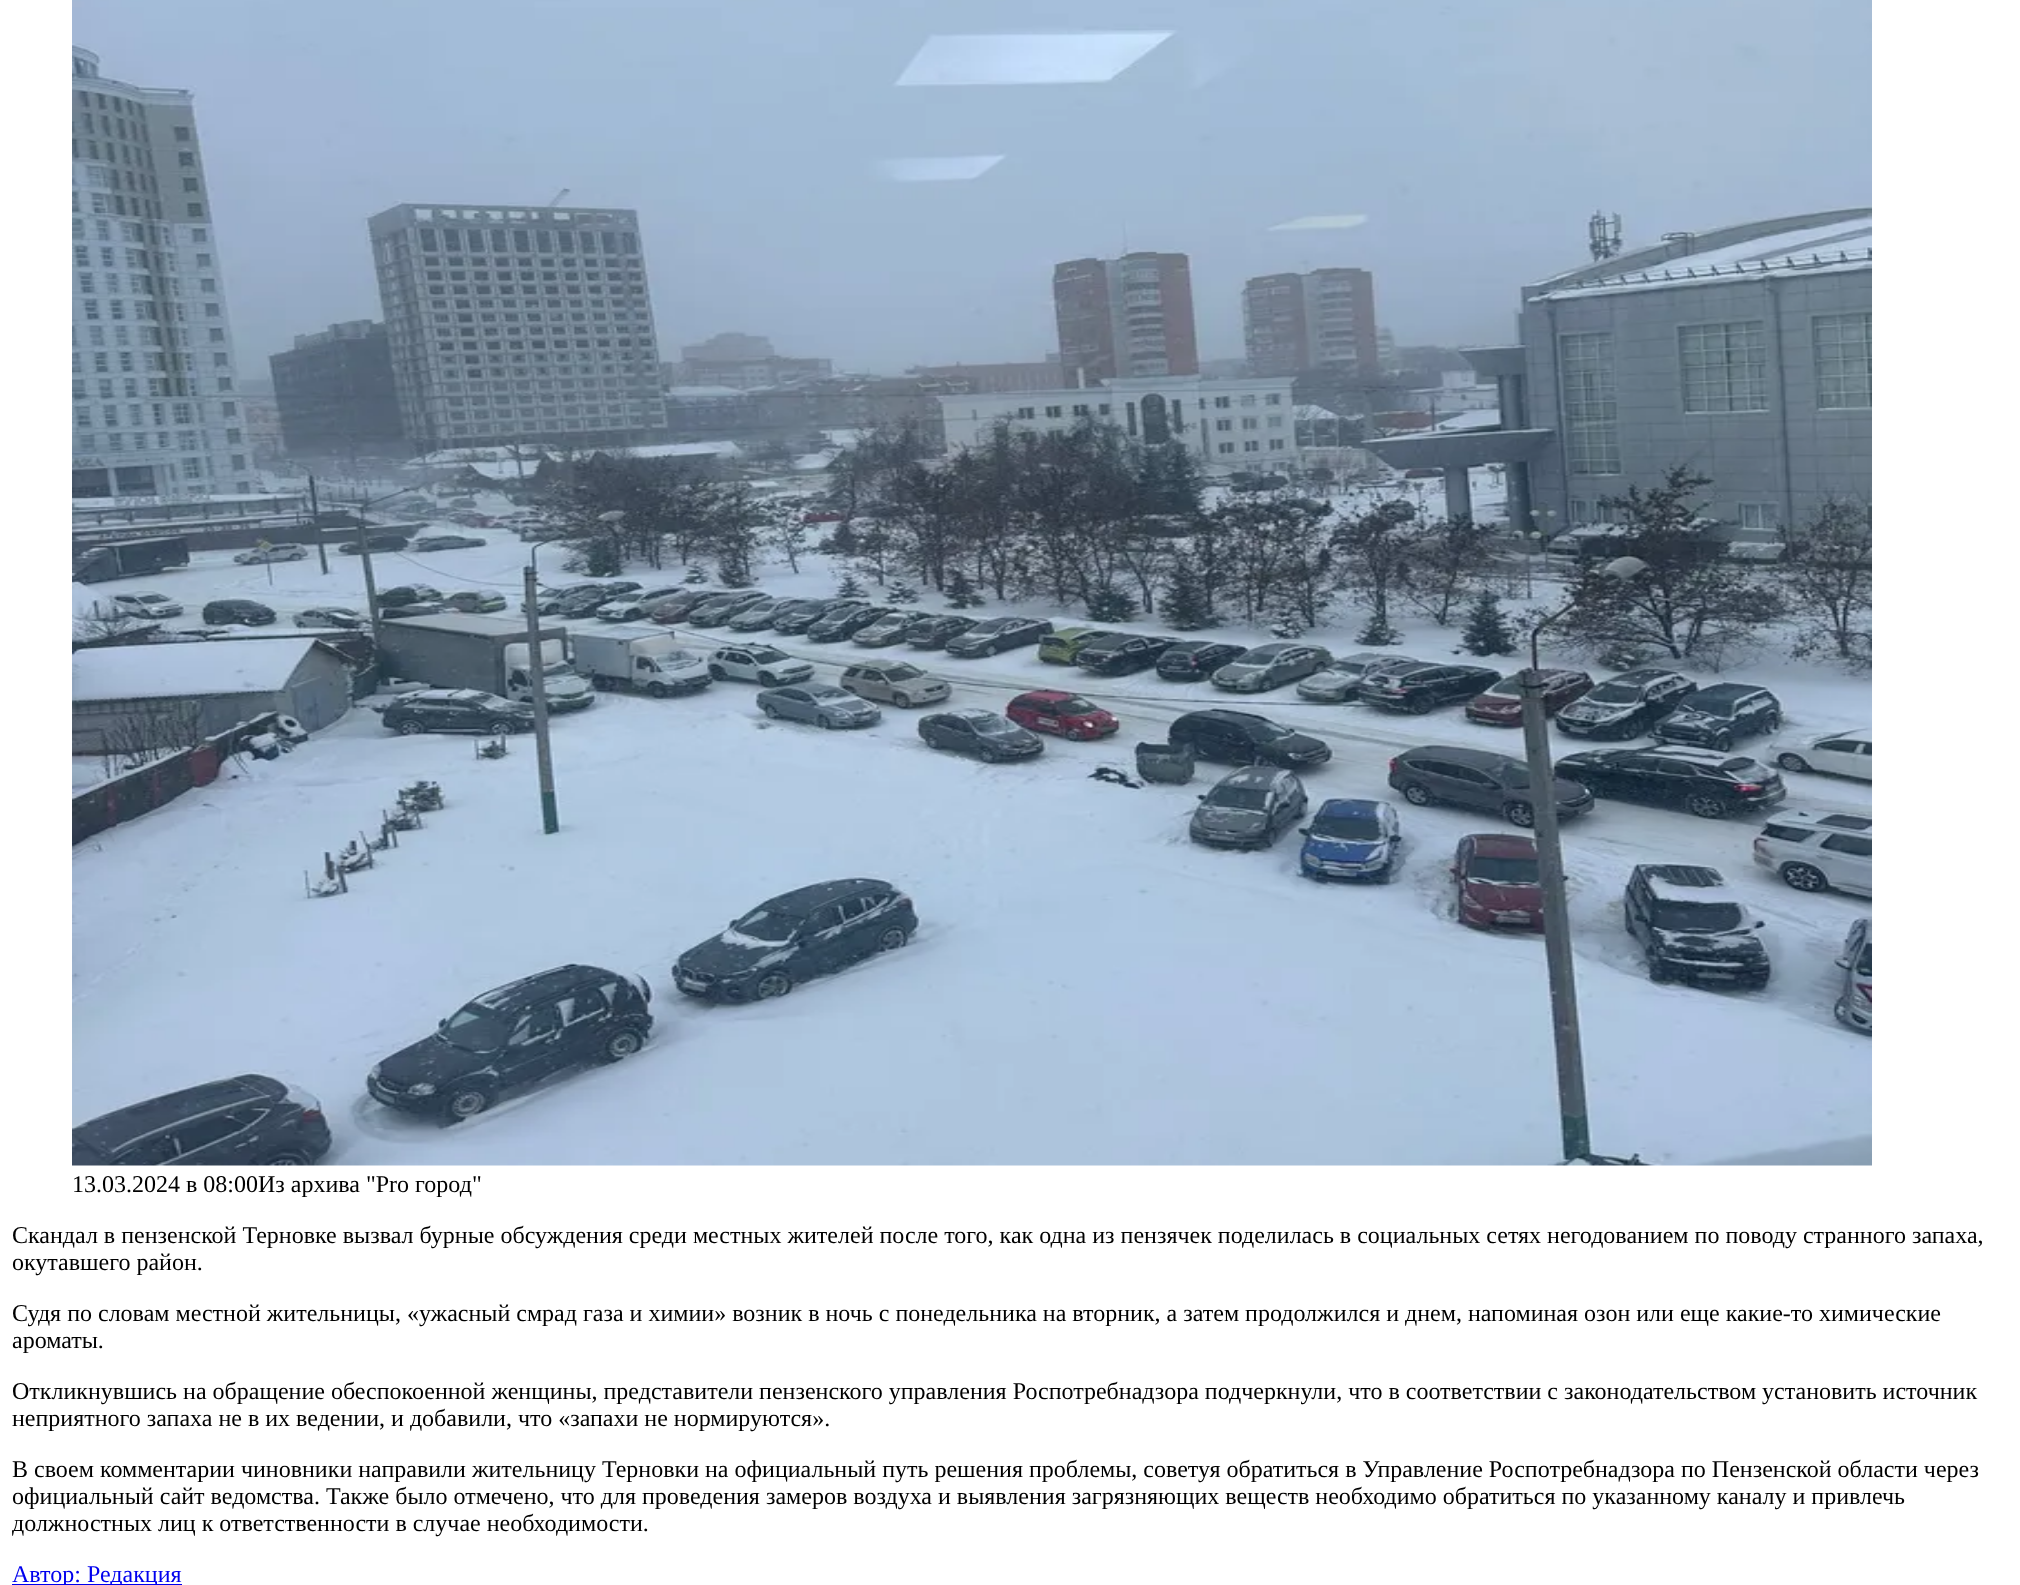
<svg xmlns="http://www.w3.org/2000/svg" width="2020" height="1585">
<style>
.a{font:24px Liberation Serif;fill:#000}
.b{font:24px Liberation Serif;fill:#00e}
</style>
<rect width="100%" height="100%" fill="#fff"/>
<image href="1.png" x="72" y="0" width="1800" height="1166"/>
<path fill="#00e" d="M12 1584h170v1H12z"/>
<text class="a" x="72" y="1192">13.03.2024 в 08:00Из архива "Pro город"</text>
<text class="a" x="12" y="1243">Скандал в пензенской Терновке вызвал бурные обсуждения среди местных жителей после того, как одна из пензячек поделилась в социальных сетях негодованием по поводу странного запаха,</text>
<text class="a" x="12" y="1270">окутавшего район.</text>
<text class="a" x="12" y="1321">Судя по словам местной жительницы, «ужасный смрад газа и химии» возник в ночь с понедельника на вторник, а затем продолжился и днем, напоминая озон или еще какие-то химические</text>
<text class="a" x="12" y="1348">ароматы.</text>
<text class="a" x="12" y="1399">Откликнувшись на обращение обеспокоенной женщины, представители пензенского управления Роспотребнадзора подчеркнули, что в соответствии с законодательством установить источник</text>
<text class="a" x="12" y="1426">неприятного запаха не в их ведении, и добавили, что «запахи не нормируются».</text>
<text class="a" x="12" y="1477">В своем комментарии чиновники направили жительницу Терновки на официальный путь решения проблемы, советуя обратиться в Управление Роспотребнадзора по Пензенской области через</text>
<text class="a" x="12" y="1504">официальный сайт ведомства. Также было отмечено, что для проведения замеров воздуха и выявления загрязняющих веществ необходимо обратиться по указанному каналу и привлечь</text>
<text class="a" x="12" y="1531">должностных лиц к ответственности в случае необходимости.</text>
<text class="b" x="12" y="1582">Автор: Редакция</text>
</svg>
